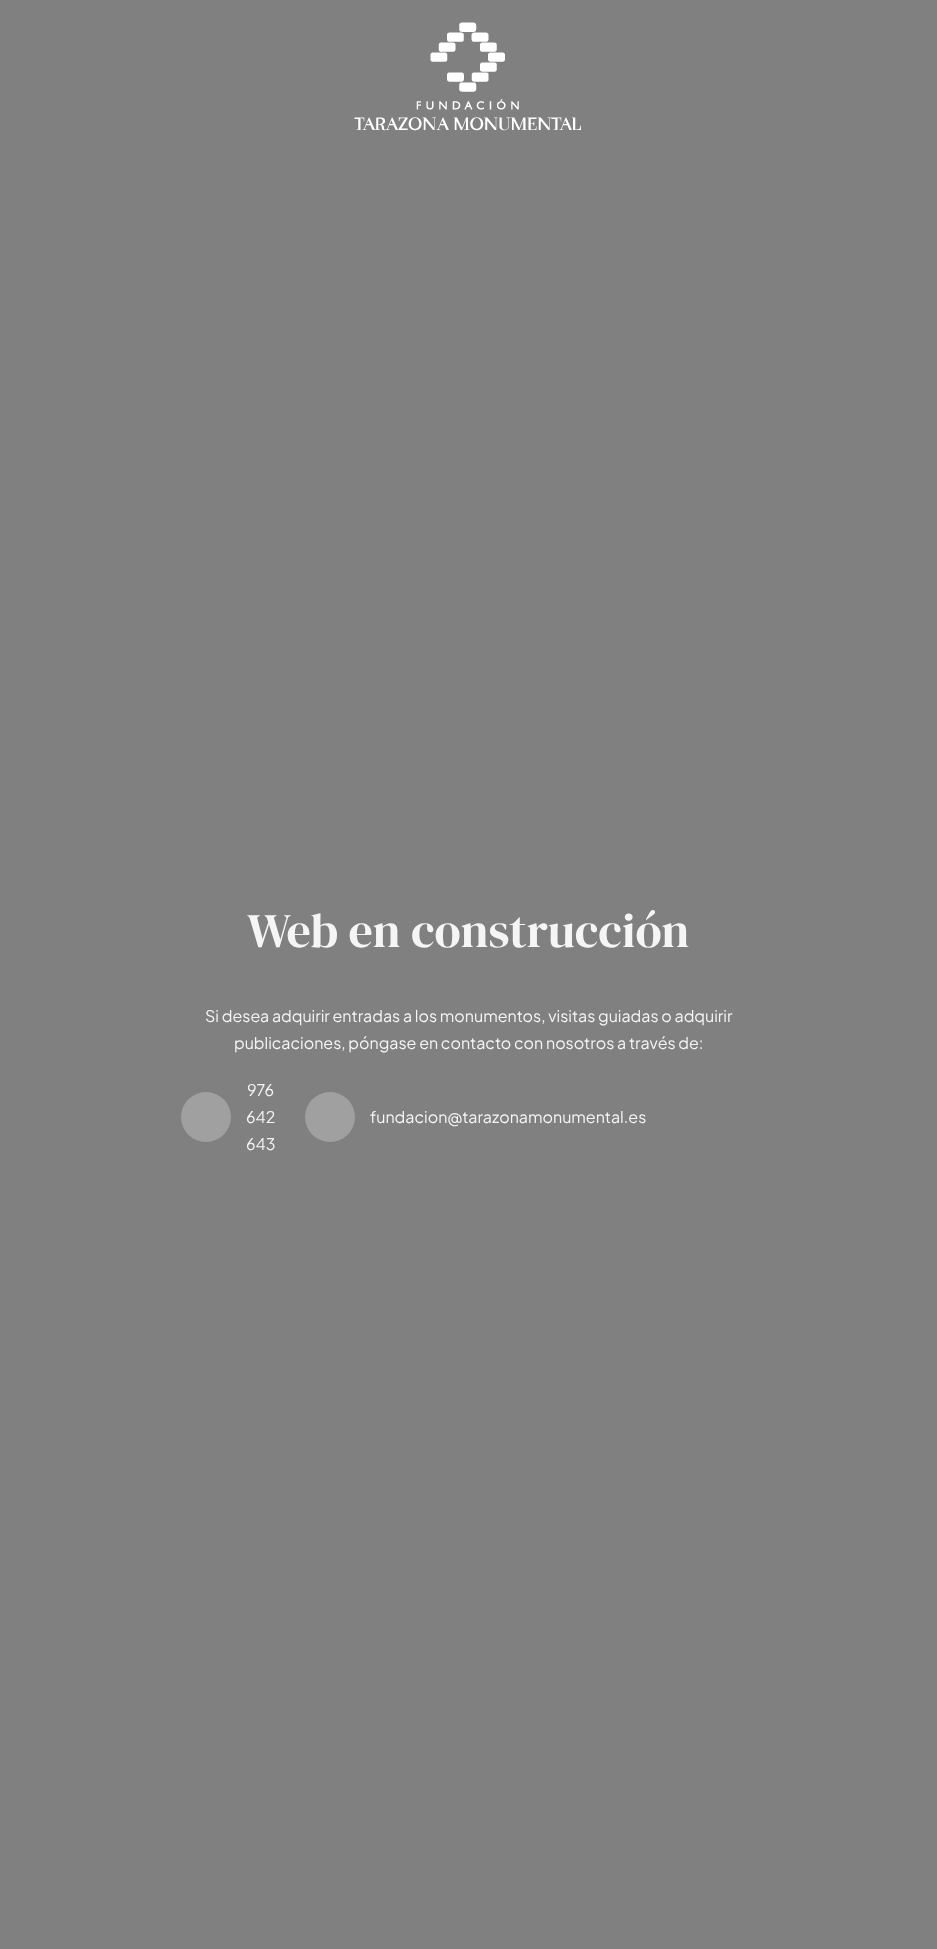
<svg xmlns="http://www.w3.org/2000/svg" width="937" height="1949">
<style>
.a{font:48px DM Serif Display;fill:#f5f5f5}
.b{font:16px Plus Jakarta Sans;fill:#f5f5f5}
</style>
<rect width="100%" height="100%" fill="#808080"/>
<image href="1.png" x="354" y="22" width="227" height="109"/>
<circle fill="#a0a0a0" cx="206" cy="1117" r="25"/>
<circle fill="#a0a0a0" cx="330" cy="1117" r="25"/>
<text class="a" x="247" y="947">Web en construcción</text>
<text class="b" x="205" y="1022">Si desea adquirir entradas a los monumentos, visitas guiadas o adquirir</text>
<text class="b" x="234" y="1049">publicaciones, póngase en contacto con nosotros a través de:</text>
<text class="b" x="247" y="1096">976</text>
<text class="b" x="246" y="1123">642</text>
<text class="b" x="246" y="1150">643</text>
<text class="b" x="370" y="1123">fundacion@tarazonamonumental.es</text>
</svg>
